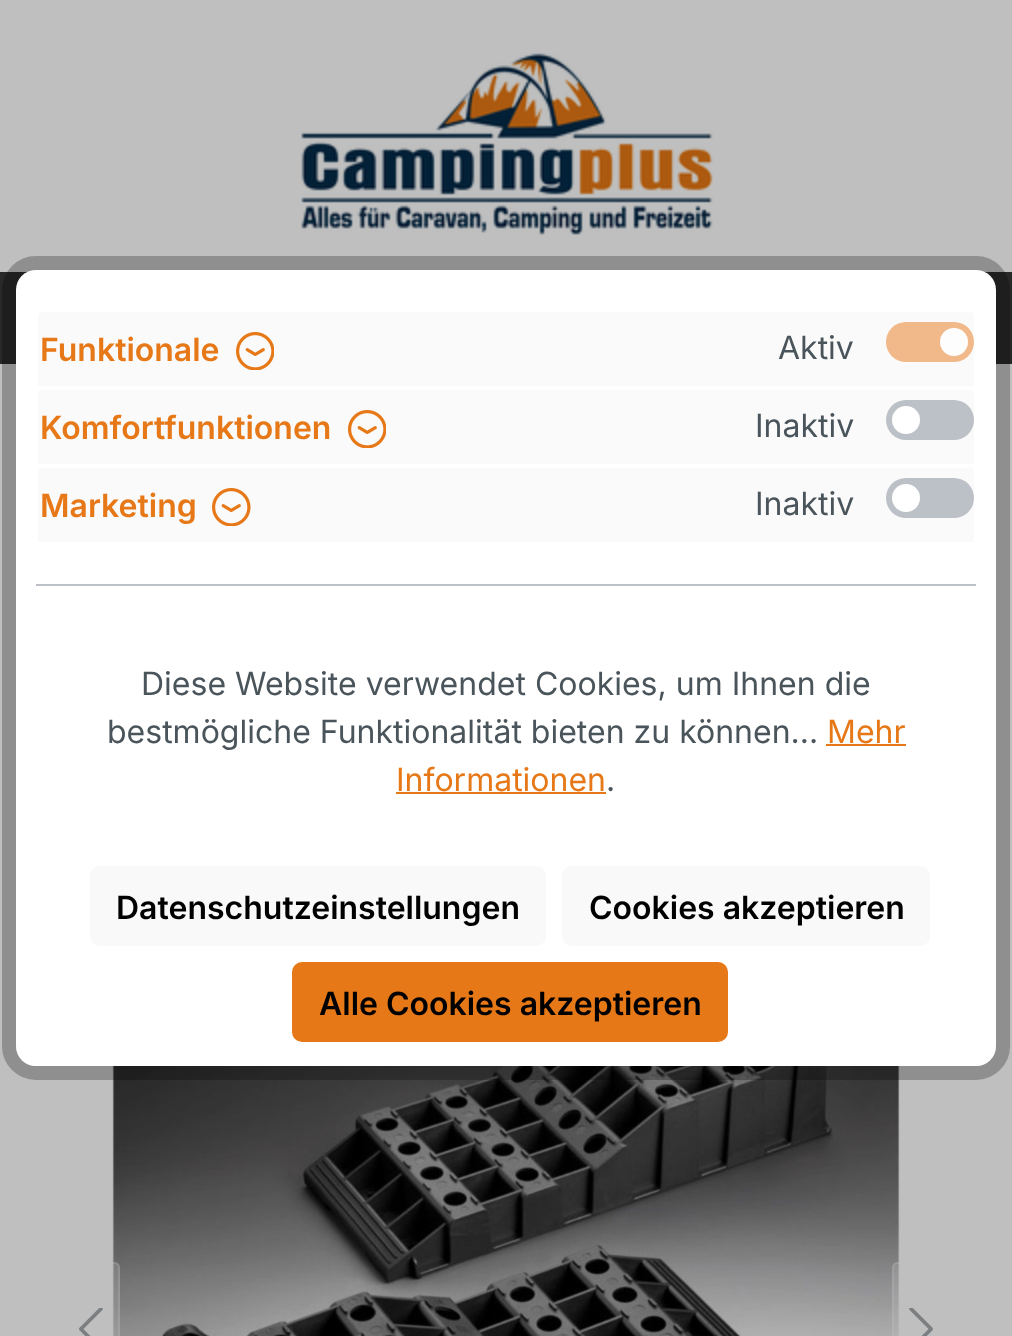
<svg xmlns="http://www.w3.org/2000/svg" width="1012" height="1336">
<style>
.a{font:600 32px Inter;fill:#e77817}
.b{font:32px Inter;fill:#4a545b}
.c{font:32px Inter;fill:#e77817}
.d{font:600 32px Inter;fill:#000}
</style>
<rect width="100%" height="100%" fill="#bfbfbf"/>
<image href="1.png" x="301" y="53" width="412" height="182"/>
<path fill="#292929" d="M0 272h1012v92H0z"/>
<image href="4.png" x="112" y="1066" width="788" height="270"/>
<rect fill="none" stroke="#00000040" stroke-width="14" x="9" y="263" width="994" height="810" rx="27"/>
<rect fill="#fff" x="16" y="270" width="980" height="796" rx="20"/>
<path fill="#bcc1c7" d="M36 584h940v2H36z"/>
<path fill="#fafafa" d="M42 312h928c2 0 4 2 4 4v70h-936v-70c0-2 2-4 4-4z"/>
<image href="2.png" x="236" y="332" width="38" height="38"/>
<rect fill="#f1b989" x="886" y="322" width="88" height="40" rx="20"/>
<circle fill="#fdfdfd" cx="954" cy="342" r="14"/>
<path fill="#fafafa" d="M42 390h928c2 0 4 2 4 4v70h-936v-70c0-2 2-4 4-4z"/>
<image href="2.png" x="348" y="410" width="38" height="38"/>
<rect fill="#bcc1c7" x="886" y="400" width="88" height="40" rx="20"/>
<circle fill="#fff" cx="906" cy="420" r="14"/>
<path fill="#fafafa" d="M42 468h928c2 0 4 2 4 4v70h-936v-70c0-2 2-4 4-4z"/>
<image href="3.png" x="212" y="488" width="39" height="38"/>
<rect fill="#bcc1c7" x="886" y="478" width="88" height="40" rx="20"/>
<circle fill="#fff" cx="906" cy="498" r="14"/>
<path fill="#e77817" d="M826 744h80v2H826z"/>
<path fill="#e77817" d="M396 792h210v2H396z"/>
<rect fill="#f9f9f9" x="90" y="866" width="456" height="80" rx="10"/>
<rect fill="#f9f9f9" x="562" y="866" width="368" height="80" rx="10"/>
<rect fill="#e77817" stroke="#e77817" stroke-width="2" x="293" y="963" width="434" height="78" rx="9"/>
<path fill="#bfbfbf40" d="M60 1262h54c3.5 0 6 2.5 6 6v68c0 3.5-2.5 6-6 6h-54z"/>
<path fill="none" stroke="#bfbfbf40" stroke-width="2" d="M61 1263h53c3 0 5 2 5 5v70c0 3-2 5-5 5h-53z"/>
<image href="5.png" x="79" y="1308" width="24" height="28"/>
<path fill="#bfbfbf40" d="M898 1262h54v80h-54c-3.5 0-6-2.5-6-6v-68c0-3.5 2.5-6 6-6z"/>
<path fill="none" stroke="#bfbfbf40" stroke-width="2" d="M898 1263h53v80h-53c-3 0-5-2-5-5v-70c0-3 2-5 5-5z"/>
<image href="6.png" x="909" y="1308" width="24" height="28"/>
<text class="a" x="40" y="361">Funktionale</text>
<text class="b" x="778" y="359">Aktiv</text>
<text class="a" x="40" y="439">Komfortfunktionen</text>
<text class="b" x="755" y="437">Inaktiv</text>
<text class="a" x="40" y="517">Marketing</text>
<text class="b" x="755" y="515">Inaktiv</text>
<text class="b" x="141" y="695">Diese Website verwendet Cookies, um Ihnen die</text>
<text class="b" x="107" y="743">bestmögliche Funktionalität bieten zu können...</text>
<text class="c" x="827" y="743">Mehr</text>
<text class="c" x="396" y="791">Informationen</text>
<text class="b" x="606" y="791">.</text>
<text class="d" x="116" y="919">Datenschutzeinstellungen</text>
<text class="d" x="589" y="919">Cookies akzeptieren</text>
<text class="d" x="319" y="1015">Alle Cookies akzeptieren</text>
</svg>
